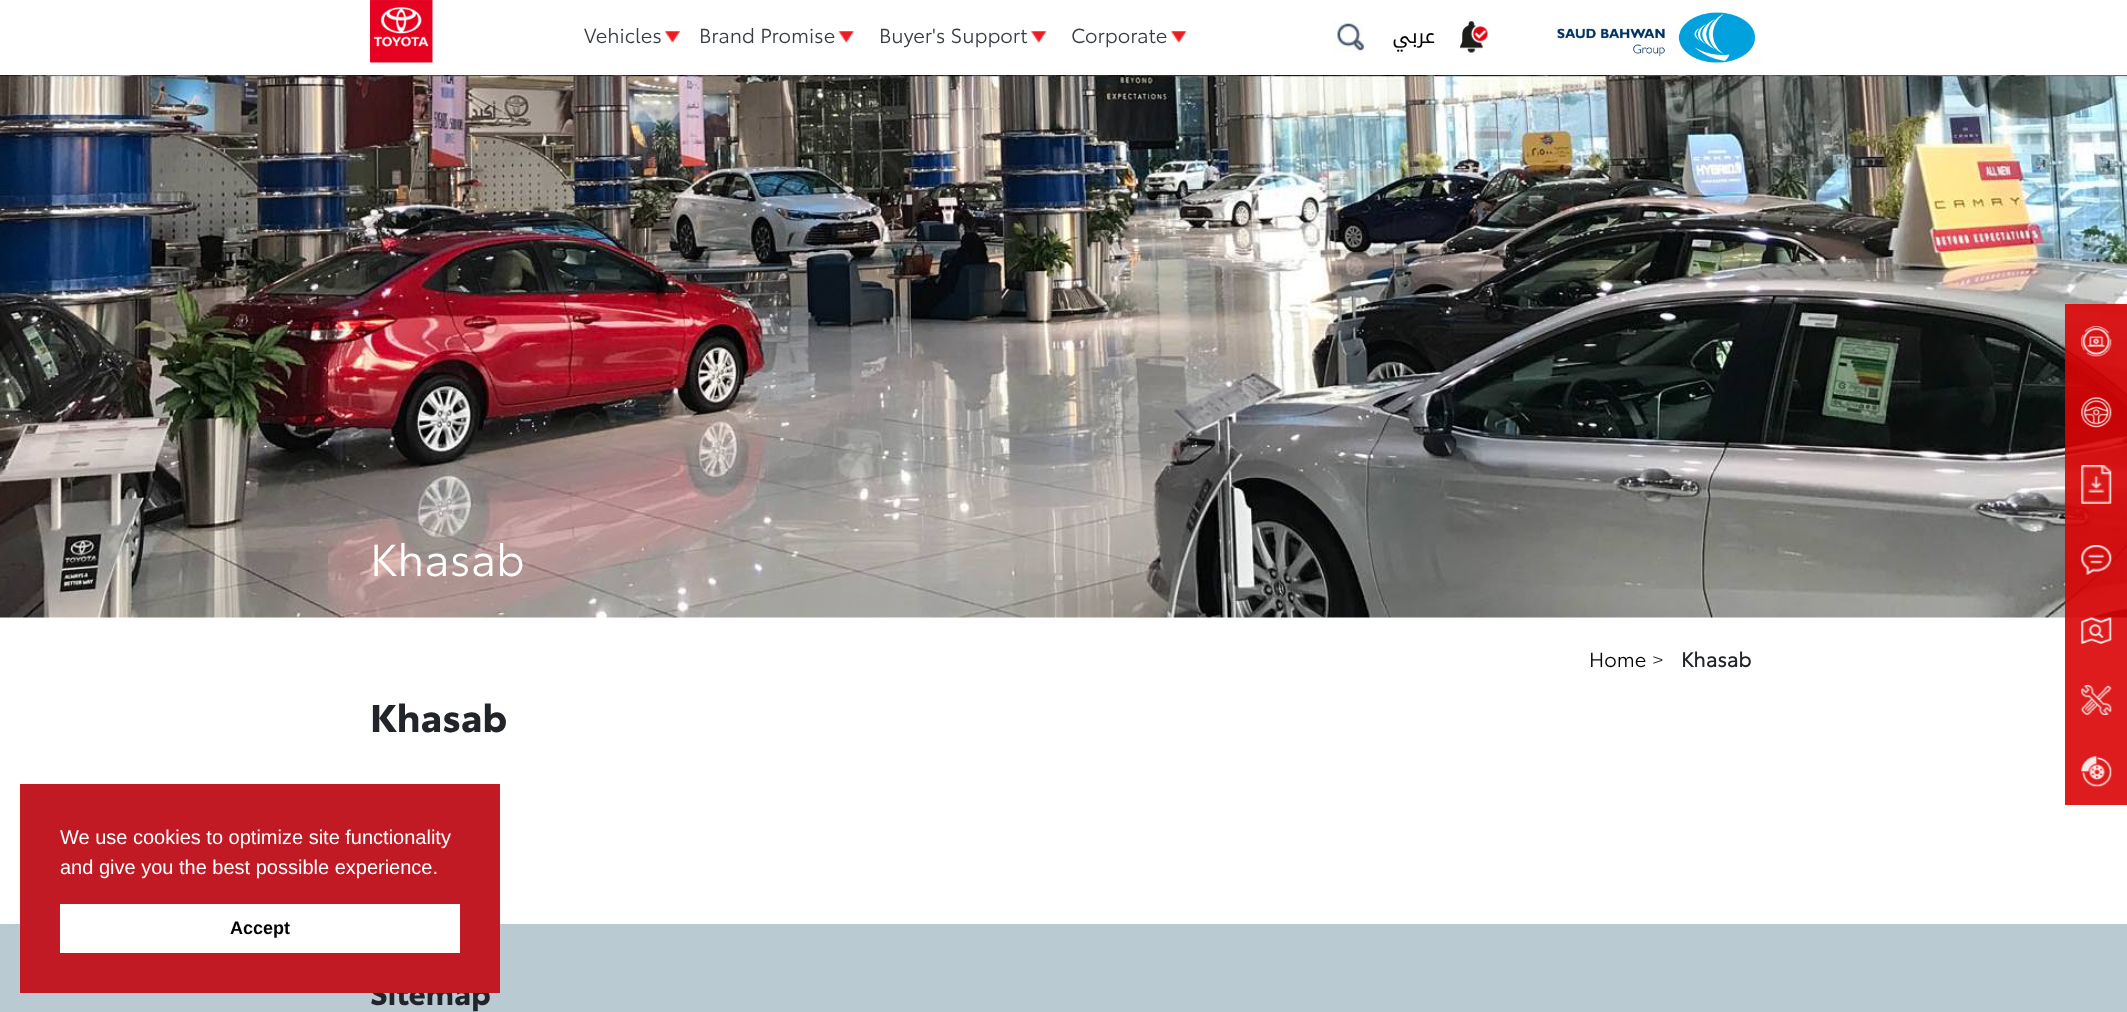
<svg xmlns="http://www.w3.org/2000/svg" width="2127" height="1012">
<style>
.a{font:20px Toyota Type;fill:#373d45}
.b{font:20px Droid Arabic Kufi;direction:rtl;fill:#000}
.c{font:44px Toyota Type;fill:#fff}
.d{font:20px Toyota Type;fill:#000}
.e{font:20px Toyota Type;fill:#212529}
.f{font:bold 20px Toyota Type;fill:#212529}
.g{font:bold 38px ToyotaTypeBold;fill:#212529}
.h{font:bold 30px ToyotaTypeBold;fill:#212529}
.i{font:bold 18px Liberation Sans;fill:#000}
.j{font:20px Liberation Sans;fill:#fff}
</style>
<rect width="100%" height="100%" fill="#fff"/>
<image href="1.png" x="370" y="0" width="63" height="63"/>
<image href="2.png" x="665" y="31" width="15" height="12"/>
<image href="3.png" x="838" y="31" width="16" height="12"/>
<image href="4.png" x="1031" y="31" width="16" height="12"/>
<image href="4.png" x="1171" y="31" width="16" height="12"/>
<image href="5.png" x="1332" y="21" width="36" height="31"/>
<image href="6.png" x="1460" y="21" width="28" height="32"/>
<image href="7.png" x="1557" y="12" width="198" height="51"/>
<image href="8.png" x="0" y="75" width="2127" height="543"/>
<path fill="#db0304e6" d="M2065 304h62v71H2065z"/>
<image href="9.png" x="2081" y="326" width="31" height="31"/>
<path fill="#db0304e6" d="M2065 375h62v71H2065z"/>
<image href="10.png" x="2081" y="397" width="31" height="31"/>
<path fill="#db0304e6" d="M2065 446h62v77H2065z"/>
<image href="11.png" x="2081" y="465" width="31" height="39"/>
<path fill="#db0304e6" d="M2065 523h62v71H2065z"/>
<image href="12.png" x="2081" y="545" width="31" height="30"/>
<path fill="#db0304e6" d="M2065 594h62v69H2065z"/>
<image href="13.png" x="2081" y="617" width="31" height="27"/>
<path fill="#df1c1d" d="M2065 663h62v142H2065z"/>
<image href="14.png" x="2081" y="685" width="31" height="30"/>
<image href="15.png" x="2081" y="756" width="31" height="31"/>
<path fill="#bacad3" d="M0 924h2127v88H0z"/>
<text class="a" x="584" y="43">Vehicles</text>
<text class="a" x="699" y="43">Brand Promise</text>
<text class="a" x="879" y="43">Buyer's Support</text>
<text class="a" x="1071" y="43">Corporate</text>
<text class="b" x="1435" y="43">عربي</text>
<text class="c" x="370" y="576">Khasab</text>
<text class="d" x="1589" y="667">Home</text>
<text class="e" x="1652" y="667">&gt;</text>
<text class="f" x="1681" y="667">Khasab</text>
<text class="g" x="370" y="732">Khasab</text>
<text class="h" x="370" y="1005">Sitemap</text>
<path fill="#c21a24" d="M20 784h480v209H20z"/>
<path fill="#fff" d="M60 904h400v49H60z"/>
<text class="i" x="230" y="934">Accept</text>
<text class="j" x="60" y="874">and give you the best possible experience.</text>
<text class="j" x="60" y="844">We use cookies to optimize site functionality</text>
</svg>
